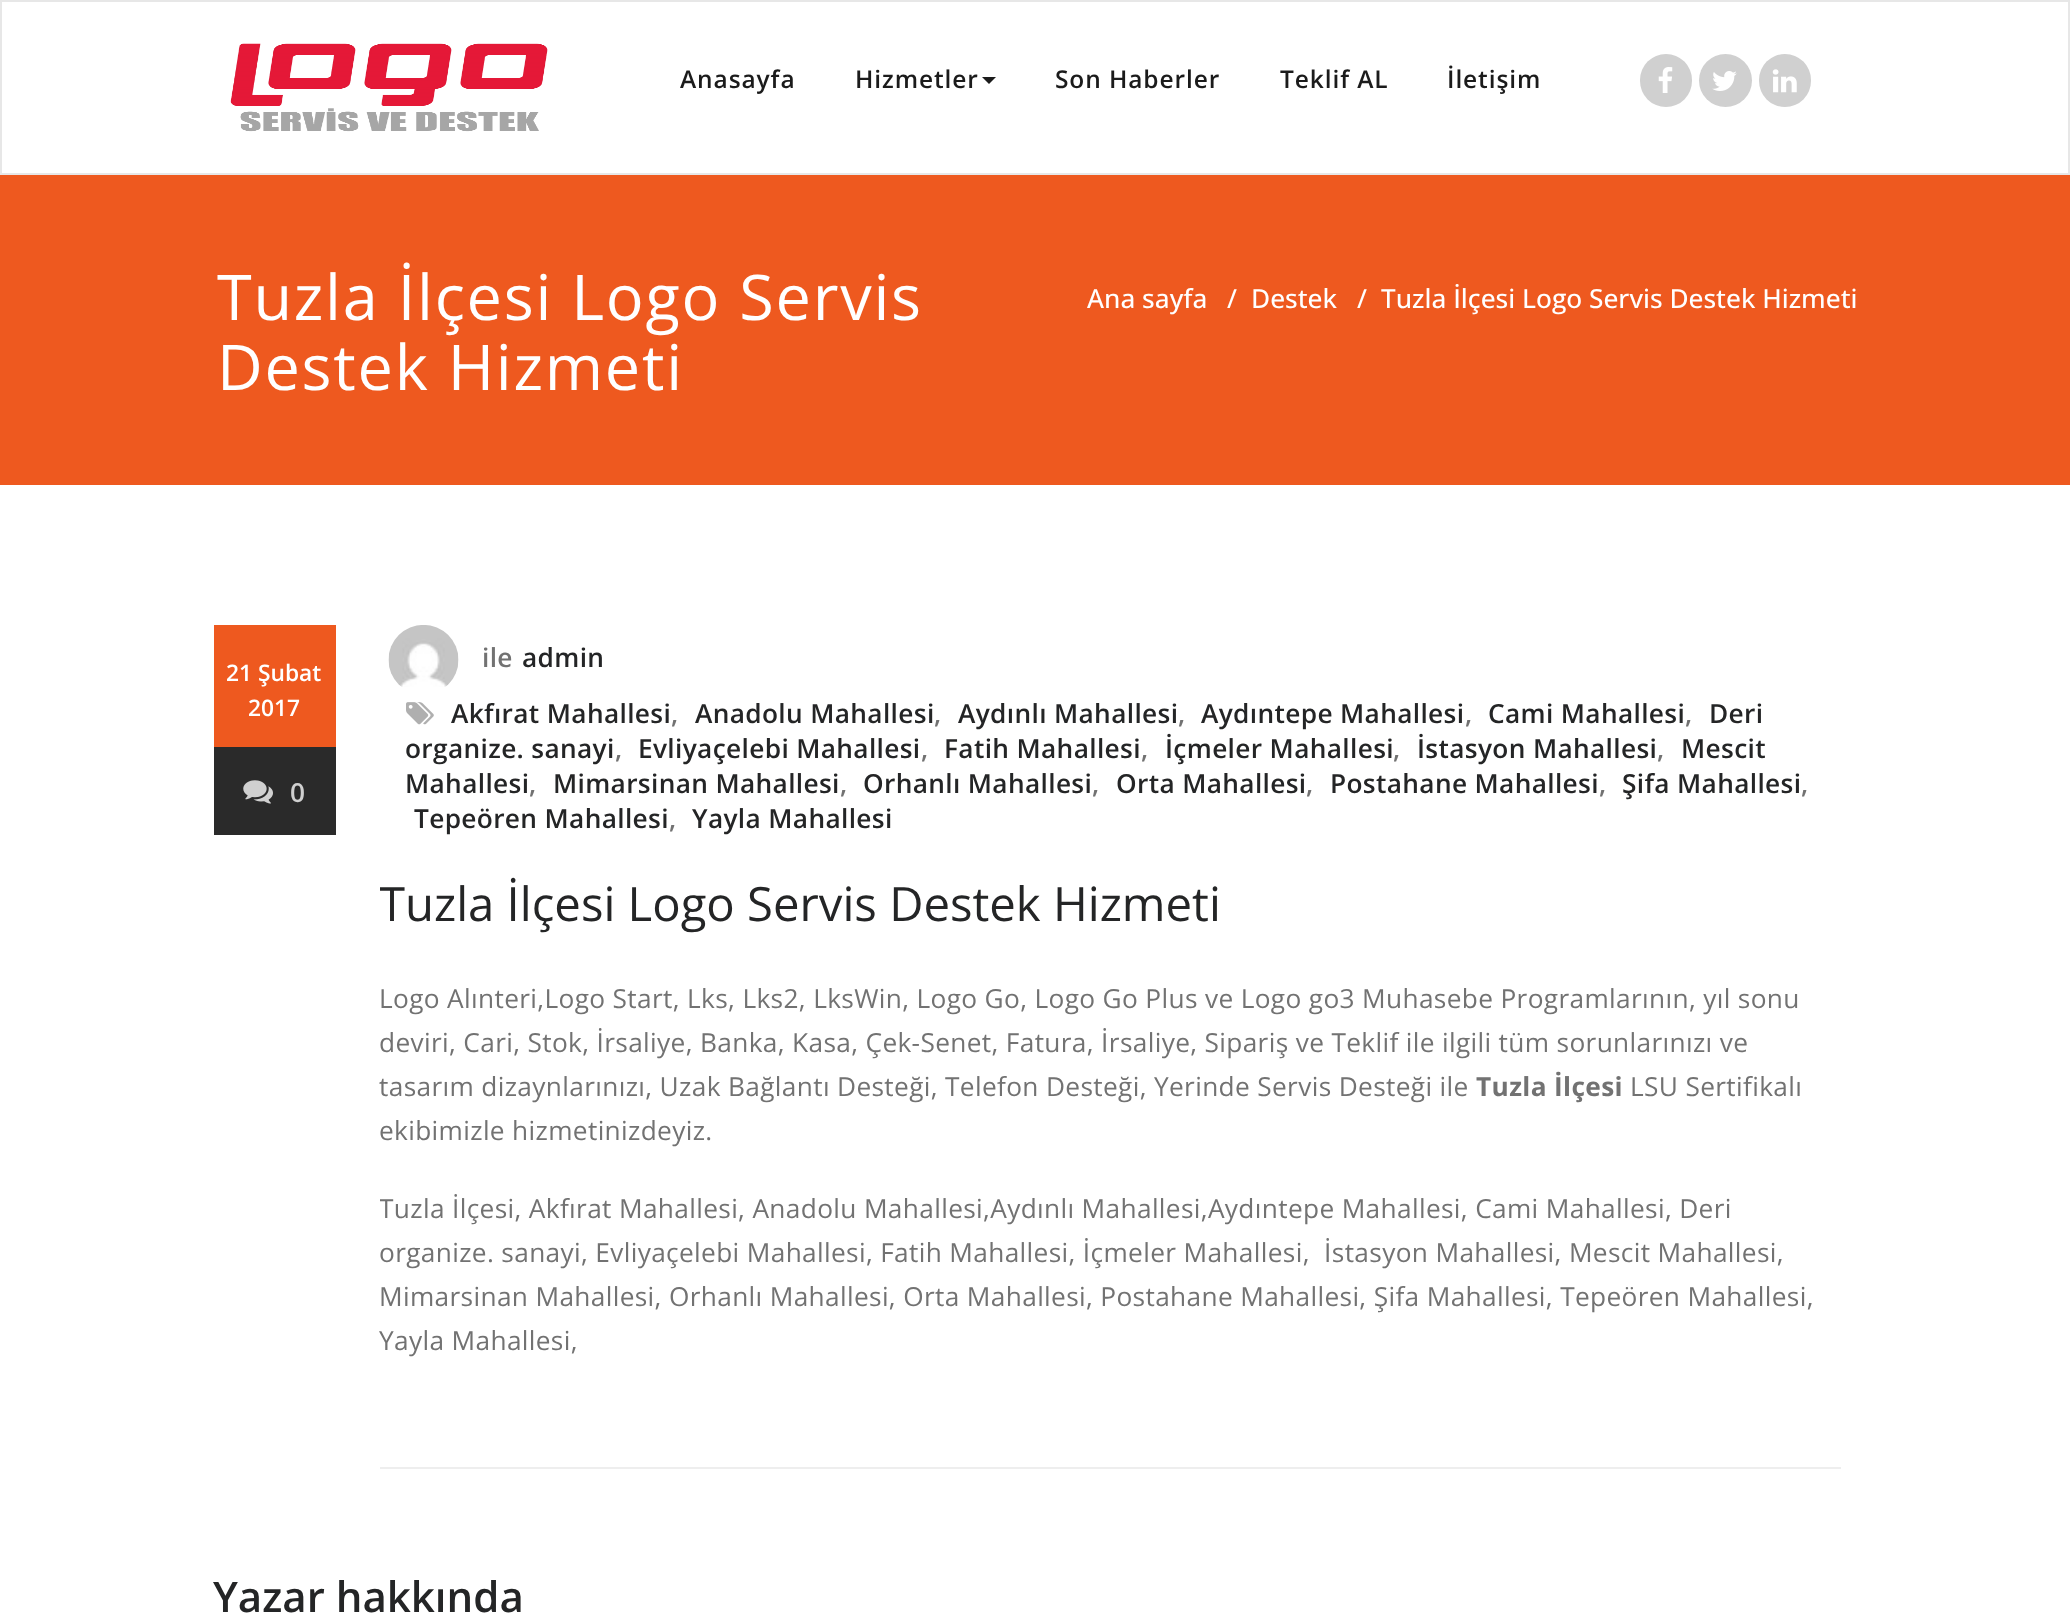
<svg xmlns="http://www.w3.org/2000/svg" width="2070" height="1622">
<style>
.a{font:600 24.5px Open Sans;letter-spacing:0.9px;fill:#1b1b1b}
.b{font:63px Open Sans;letter-spacing:1.75px;fill:#fff}
.c{font:500 26.25px Open Sans;fill:#fff}
.d{font:600 22.75px Open Sans;fill:#fff}
.e{font:600 26.25px Open Sans;fill:#d0d0d0}
.f{font:600 26.25px Open Sans;letter-spacing:0.35px;fill:#727272}
.g{font:600 26.25px Open Sans;letter-spacing:0.35px;fill:#242526}
.h{font:47.25px Open Sans;fill:#242526}
.i{font:26.25px Open Sans;letter-spacing:0.35px;fill:#727272}
.j{font:bold 26.25px Open Sans;letter-spacing:0.35px;fill:#727272}
.k{font:600 42px Open Sans;fill:#242526}
</style>
<defs>
<clipPath id="clip1"><path d="M380 625h1461v842H380z"/></clipPath>
</defs>
<rect width="100%" height="100%" fill="#fff"/>
<path fill="none" stroke="#e7e7e7" stroke-width="2" d="M1 1h2068v173H1z"/>
<image href="1.png" x="230" y="43" width="318" height="89"/>
<path fill="#1b1b1b" d="M982 77h14l-7 7z"/>
<rect fill="#d0d0d0" x="1640" y="54" width="52" height="53" rx="26"/>
<image href="2.png" x="1658" y="67" width="15" height="26"/>
<circle fill="#d0d0d0" cx="1725.5" cy="80.5" r="26.5"/>
<image href="3.png" x="1712" y="71" width="25" height="20"/>
<rect fill="#d0d0d0" x="1759" y="54" width="52" height="53" rx="26"/>
<image href="4.png" x="1772" y="69" width="25" height="24"/>
<path fill="#ee591f" d="M0 175h2070v310H0z"/>
<path fill="#ee591f" d="M214 625h122v122H214z"/>
<path fill="#2a2a2a" d="M214 747h122v88H214z"/>
<image href="5.png" x="243" y="780" width="30" height="24"/>
<path fill="#eee" d="M380 1467h1461v2H380z"/>
<image href="6.png" x="388" y="625" width="71" height="62"/>
<image href="7.png" x="406" y="702" width="28" height="23"/>
<text class="a" x="680" y="88">Anasayfa</text>
<text class="a" x="855" y="88">Hizmetler</text>
<text class="a" x="1055" y="88">Son Haberler</text>
<text class="a" x="1280" y="88">Teklif AL</text>
<text class="a" x="1447" y="88">İletişim</text>
<text class="b" x="217" y="320">Tuzla İlçesi Logo Servis</text>
<text class="b" x="217" y="390">Destek Hizmeti</text>
<text class="c" x="1087" y="308">Ana sayfa</text>
<text class="c" x="1227" y="308">/</text>
<text class="c" x="1251" y="308">Destek</text>
<text class="c" x="1357" y="308">/</text>
<text class="c" x="1381" y="308">Tuzla İlçesi Logo Servis Destek Hizmeti</text>
<text class="d" x="226" y="681">21 Şubat</text>
<text class="d" x="248" y="716">2017</text>
<text class="e" x="290" y="802">0</text>
<text class="f" x="482" y="667">ile</text>
<text class="g" x="522" y="667">admin</text>
<text class="g" x="451" y="723">Akfırat Mahallesi</text>
<text class="f" x="671" y="723">,</text>
<text class="g" x="695" y="723">Anadolu Mahallesi</text>
<text class="f" x="934" y="723">,</text>
<text class="g" x="958" y="723">Aydınlı Mahallesi</text>
<text class="f" x="1178" y="723">,</text>
<text class="g" x="1201" y="723">Aydıntepe Mahallesi</text>
<text class="f" x="1465" y="723">,</text>
<text class="g" x="1488" y="723">Cami Mahallesi</text>
<text class="f" x="1685" y="723">,</text>
<text class="g" x="1709" y="723">Deri</text>
<text class="g" x="405" y="758">organize. sanayi</text>
<text class="f" x="615" y="758">,</text>
<text class="g" x="638" y="758">Evliyaçelebi Mahallesi</text>
<text class="f" x="921" y="758">,</text>
<text class="g" x="944" y="758">Fatih Mahallesi</text>
<text class="f" x="1141" y="758">,</text>
<text class="g" x="1165" y="758">İçmeler Mahallesi</text>
<text class="f" x="1393" y="758">,</text>
<text class="g" x="1417" y="758">İstasyon Mahallesi</text>
<text class="f" x="1657" y="758">,</text>
<text class="g" x="1681" y="758">Mescit</text>
<text class="g" x="405" y="793">Mahallesi</text>
<text class="f" x="529" y="793">,</text>
<text class="g" x="553" y="793">Mimarsinan Mahallesi</text>
<text class="f" x="840" y="793">,</text>
<text class="g" x="863" y="793">Orhanlı Mahallesi</text>
<text class="f" x="1092" y="793">,</text>
<text class="g" x="1116" y="793">Orta Mahallesi</text>
<text class="f" x="1306" y="793">,</text>
<text class="g" x="1330" y="793">Postahane Mahallesi</text>
<text class="f" x="1599" y="793">,</text>
<text class="g" x="1622" y="793">Şifa Mahallesi</text>
<text class="f" x="1801" y="793">,</text>
<text class="g" x="414" y="828">Tepeören Mahallesi</text>
<text class="f" x="669" y="828">,</text>
<text class="g" x="692" y="828">Yayla Mahallesi</text>
<g clip-path="url(#clip1)">
<text class="h" x="379" y="921">Tuzla İlçesi Logo Servis Destek Hizmeti</text>
</g>
<text class="i" x="379" y="1008">Logo Alınteri,Logo Start, Lks, Lks2, LksWin, Logo Go, Logo Go Plus ve Logo go3 Muhasebe Programlarının, yıl sonu</text>
<text class="i" x="379" y="1052">deviri, Cari, Stok, İrsaliye, Banka, Kasa, Çek-Senet, Fatura, İrsaliye, Sipariş ve Teklif ile ilgili tüm sorunlarınızı ve</text>
<text class="i" x="379" y="1096">tasarım dizaynlarınızı, Uzak Bağlantı Desteği, Telefon Desteği, Yerinde Servis Desteği ile</text>
<text class="j" x="1476" y="1096">Tuzla İlçesi</text>
<text class="i" x="1630" y="1096">LSU Sertifikalı</text>
<text class="i" x="379" y="1140">ekibimizle hizmetinizdeyiz.</text>
<g clip-path="url(#clip1)">
<text class="i" x="379" y="1218">Tuzla İlçesi, Akfırat Mahallesi, Anadolu Mahallesi,Aydınlı Mahallesi,Aydıntepe Mahallesi, Cami Mahallesi, Deri</text>
</g>
<text class="i" xml:space="preserve" x="379" y="1262">organize. sanayi, Evliyaçelebi Mahallesi, Fatih Mahallesi, İçmeler Mahallesi,  İstasyon Mahallesi, Mescit Mahallesi,</text>
<text class="i" x="379" y="1306">Mimarsinan Mahallesi, Orhanlı Mahallesi, Orta Mahallesi, Postahane Mahallesi, Şifa Mahallesi, Tepeören Mahallesi,</text>
<text class="i" x="379" y="1350">Yayla Mahallesi,</text>
<text class="k" x="213" y="1612">Yazar hakkında</text>
</svg>
